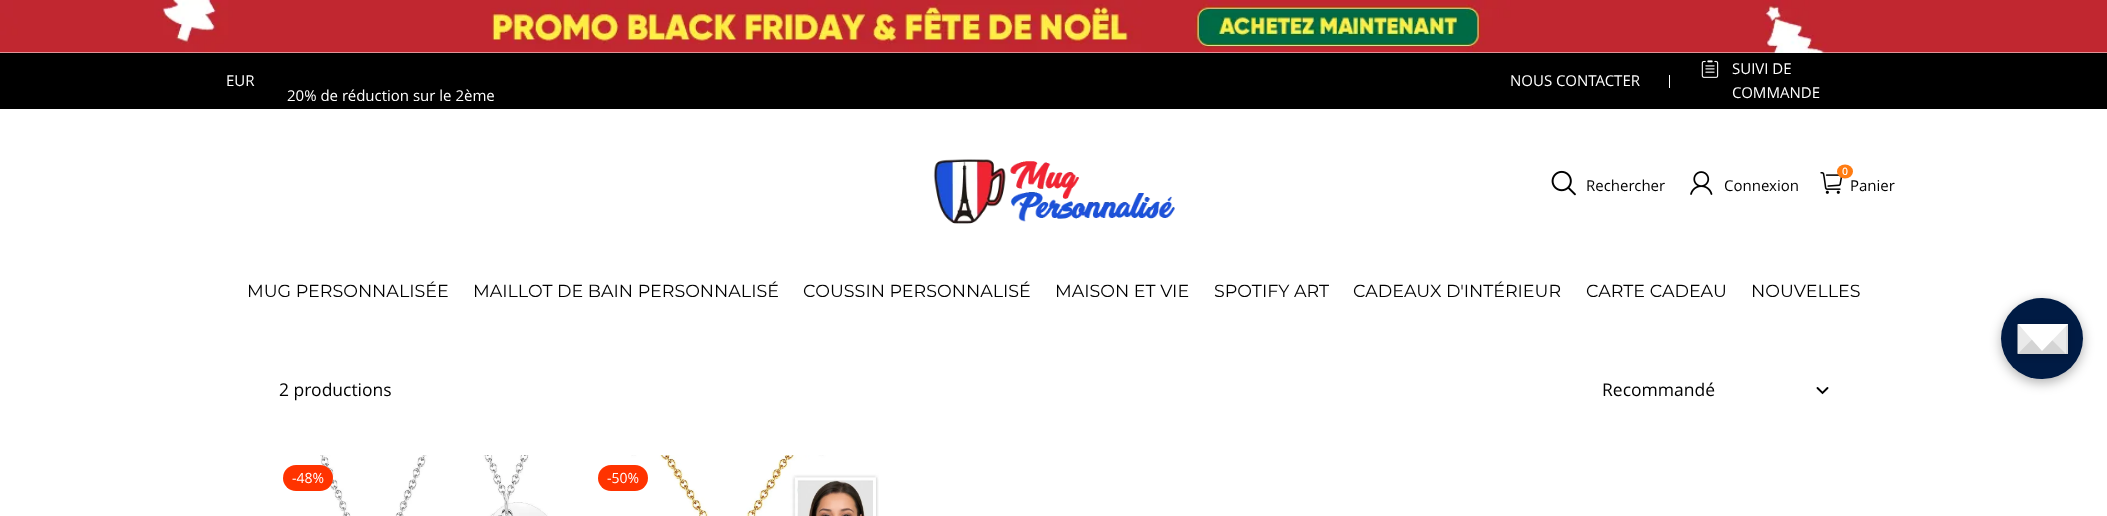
<svg xmlns="http://www.w3.org/2000/svg" width="2107" height="516">
<style>
.a{font:15px Open Sans;fill:#fff}
.b{font:15px Open Sans;fill:#000}
.c{font:bold 10px Open Sans;fill:#fff}
.d{font:100 17.5px Montserrat;fill:#000}
.e{font:17.5px Open Sans;fill:#000}
.f{font:14px Open Sans;fill:#fff}
</style>
<defs>
<clipPath id="clip1"><path d="M286 61h325v40H286z"/></clipPath>
</defs>
<rect width="100%" height="100%" fill="#fff"/>
<image href="1.png" x="0" y="0" width="2107" height="53"/>
<path fill="#000" d="M0 53h2107v56H0z"/>
<path fill="#fff" d="M1669 75h1v13H1669z"/>
<image href="2.png" x="1701" y="60" width="18" height="18"/>
<image href="3.png" x="933" y="159" width="242" height="65"/>
<image href="4.png" x="1551" y="170" width="25" height="26"/>
<image href="5.png" x="1690" y="171" width="23" height="24"/>
<image href="6.png" x="1820" y="172" width="22" height="22"/>
<ellipse fill="#ff7c12" cx="1845" cy="171.5" rx="8" ry="7"/>
<rect fill="#0000004d" filter="blur(6px)" x="2001" y="301" width="82" height="82" rx="41"/>
<rect fill="#001b44" x="2001" y="298" width="82" height="81" rx="40.5"/>
<path fill="#00000033" filter="blur(3px)" d="M2018 326h50v30H2018z"/>
<path fill="#ddd" d="M2018 324h50v30H2018z"/>
<path fill="#d4d4d4" d="M2068 354h-50l24-28z"/>
<path fill="#eaeaea" d="M2017.5 354v-30l15 15zm48.5-30v30l-15-15z"/>
<path fill="#fff" d="M2018 324h50l-26 27z"/>
<path fill="none" stroke="#000" stroke-width="1.9" stroke-linecap="round" d="M1817.5 388l5 5l5-5"/>
<image href="7.png" x="320" y="455" width="228" height="61"/>
<rect fill="#f30" x="283" y="465" width="50" height="26" rx="13"/>
<image href="8.png" x="631" y="455" width="248" height="61"/>
<rect fill="#f30" x="598" y="465" width="50" height="26" rx="13"/>
<text class="a" x="226" y="86">EUR</text>
<g clip-path="url(#clip1)">
<text class="a" x="287" y="101">20% de réduction sur le 2ème</text>
</g>
<text class="a" x="1510" y="86">NOUS CONTACTER</text>
<text class="a" x="1732" y="74">SUIVI DE</text>
<text class="a" x="1732" y="98">COMMANDE</text>
<text class="b" x="1586" y="191">Rechercher</text>
<text class="b" x="1724" y="191">Connexion</text>
<text class="c" x="1842" y="175">0</text>
<text class="b" x="1850" y="191">Panier</text>
<text class="d" x="247" y="297">MUG PERSONNALISÉE</text>
<text class="d" x="473" y="297">MAILLOT DE BAIN PERSONNALISÉ</text>
<text class="d" x="803" y="297">COUSSIN PERSONNALISÉ</text>
<text class="d" x="1055" y="297">MAISON ET VIE</text>
<text class="d" x="1214" y="297">SPOTIFY ART</text>
<text class="d" x="1353" y="297">CADEAUX D'INTÉRIEUR</text>
<text class="d" x="1586" y="297">CARTE CADEAU</text>
<text class="d" x="1751" y="297">NOUVELLES</text>
<text class="e" x="279" y="396">2 productions</text>
<text class="e" x="1602" y="396">Recommandé</text>
<text class="f" x="292" y="483">-48%</text>
<text class="f" x="607" y="483">-50%</text>
</svg>
